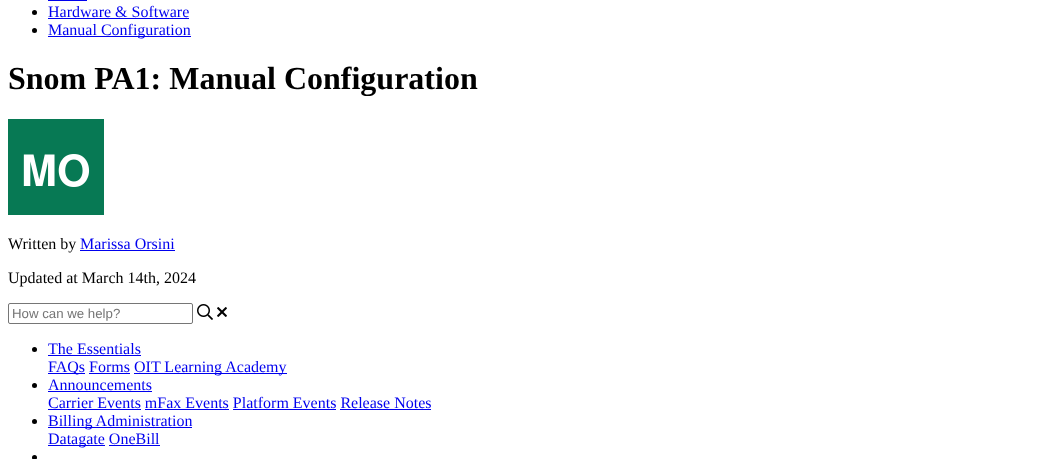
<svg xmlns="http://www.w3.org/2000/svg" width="1040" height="459">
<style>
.a{font:16px Liberation Serif;fill:#00e}
.b{font:bold 32px Liberation Serif;fill:#000}
.c{font:16px Liberation Serif;fill:#000}
.d{font:13.25px Liberation Sans;fill:#757575}
</style>
<rect width="100%" height="100%" fill="#fff"/>
<path fill="#00e" d="M48 0h39v1H48z"/>
<circle fill="#000" cx="34.5" cy="12.5" r="2.5"/>
<path fill="#00e" d="M48 18h141v1H48z"/>
<circle fill="#000" cx="34.5" cy="30.5" r="2.5"/>
<path fill="#00e" d="M48 36h143v1H48z"/>
<image href="1.png" x="8" y="119" width="96" height="96"/>
<path fill="#00e" d="M80 250h95v1H80z"/>
<rect fill="none" stroke="#767676" x="8.5" y="303.5" width="184" height="20" rx="1.5"/>
<image href="2.png" x="197" y="304" width="16" height="16"/>
<image href="3.png" x="217" y="307" width="10" height="10"/>
<circle fill="#000" cx="34.5" cy="349.5" r="2.5"/>
<path fill="#00e" d="M48 355h93v1H48z"/>
<path fill="#00e" d="M48 373h37v1H48z"/>
<path fill="#00e" d="M134 373h153v1H134z"/>
<path fill="#00e" d="M89 373h41v1H89z"/>
<circle fill="#000" cx="34.5" cy="385.5" r="2.5"/>
<path fill="#00e" d="M48 391h104v1H48z"/>
<path fill="#00e" d="M48 409h93v1H48z"/>
<path fill="#00e" d="M145 409h84v1H145z"/>
<path fill="#00e" d="M233 409h103v1H233z"/>
<path fill="#00e" d="M340 409h91v1H340z"/>
<circle fill="#000" cx="34.5" cy="421.5" r="2.5"/>
<path fill="#00e" d="M48 427h144v1H48z"/>
<path fill="#00e" d="M48 445h57v1H48z"/>
<path fill="#00e" d="M109 445h51v1H109z"/>
<circle fill="#000" cx="34.5" cy="457.5" r="2.5"/>
<text class="a" x="48" y="17">Hardware &amp; Software</text>
<text class="a" x="48" y="35">Manual Configuration</text>
<text class="b" x="8" y="89">Snom PA1: Manual Configuration</text>
<text class="c" x="8" y="249">Written by</text>
<text class="a" x="80" y="249">Marissa Orsini</text>
<text class="c" x="8" y="283">Updated at March 14th, 2024</text>
<text class="d" x="12" y="318">How can we help?</text>
<text class="a" x="48" y="354">The Essentials</text>
<text class="a" x="48" y="372">FAQs Forms</text>
<text class="a" x="134" y="372">OIT Learning Academy</text>
<text class="a" x="48" y="390">Announcements</text>
<text class="a" x="48" y="408">Carrier Events mFax Events Platform Events Release Notes</text>
<text class="a" x="48" y="426">Billing Administration</text>
<text class="a" x="48" y="444">Datagate OneBill</text>
</svg>
